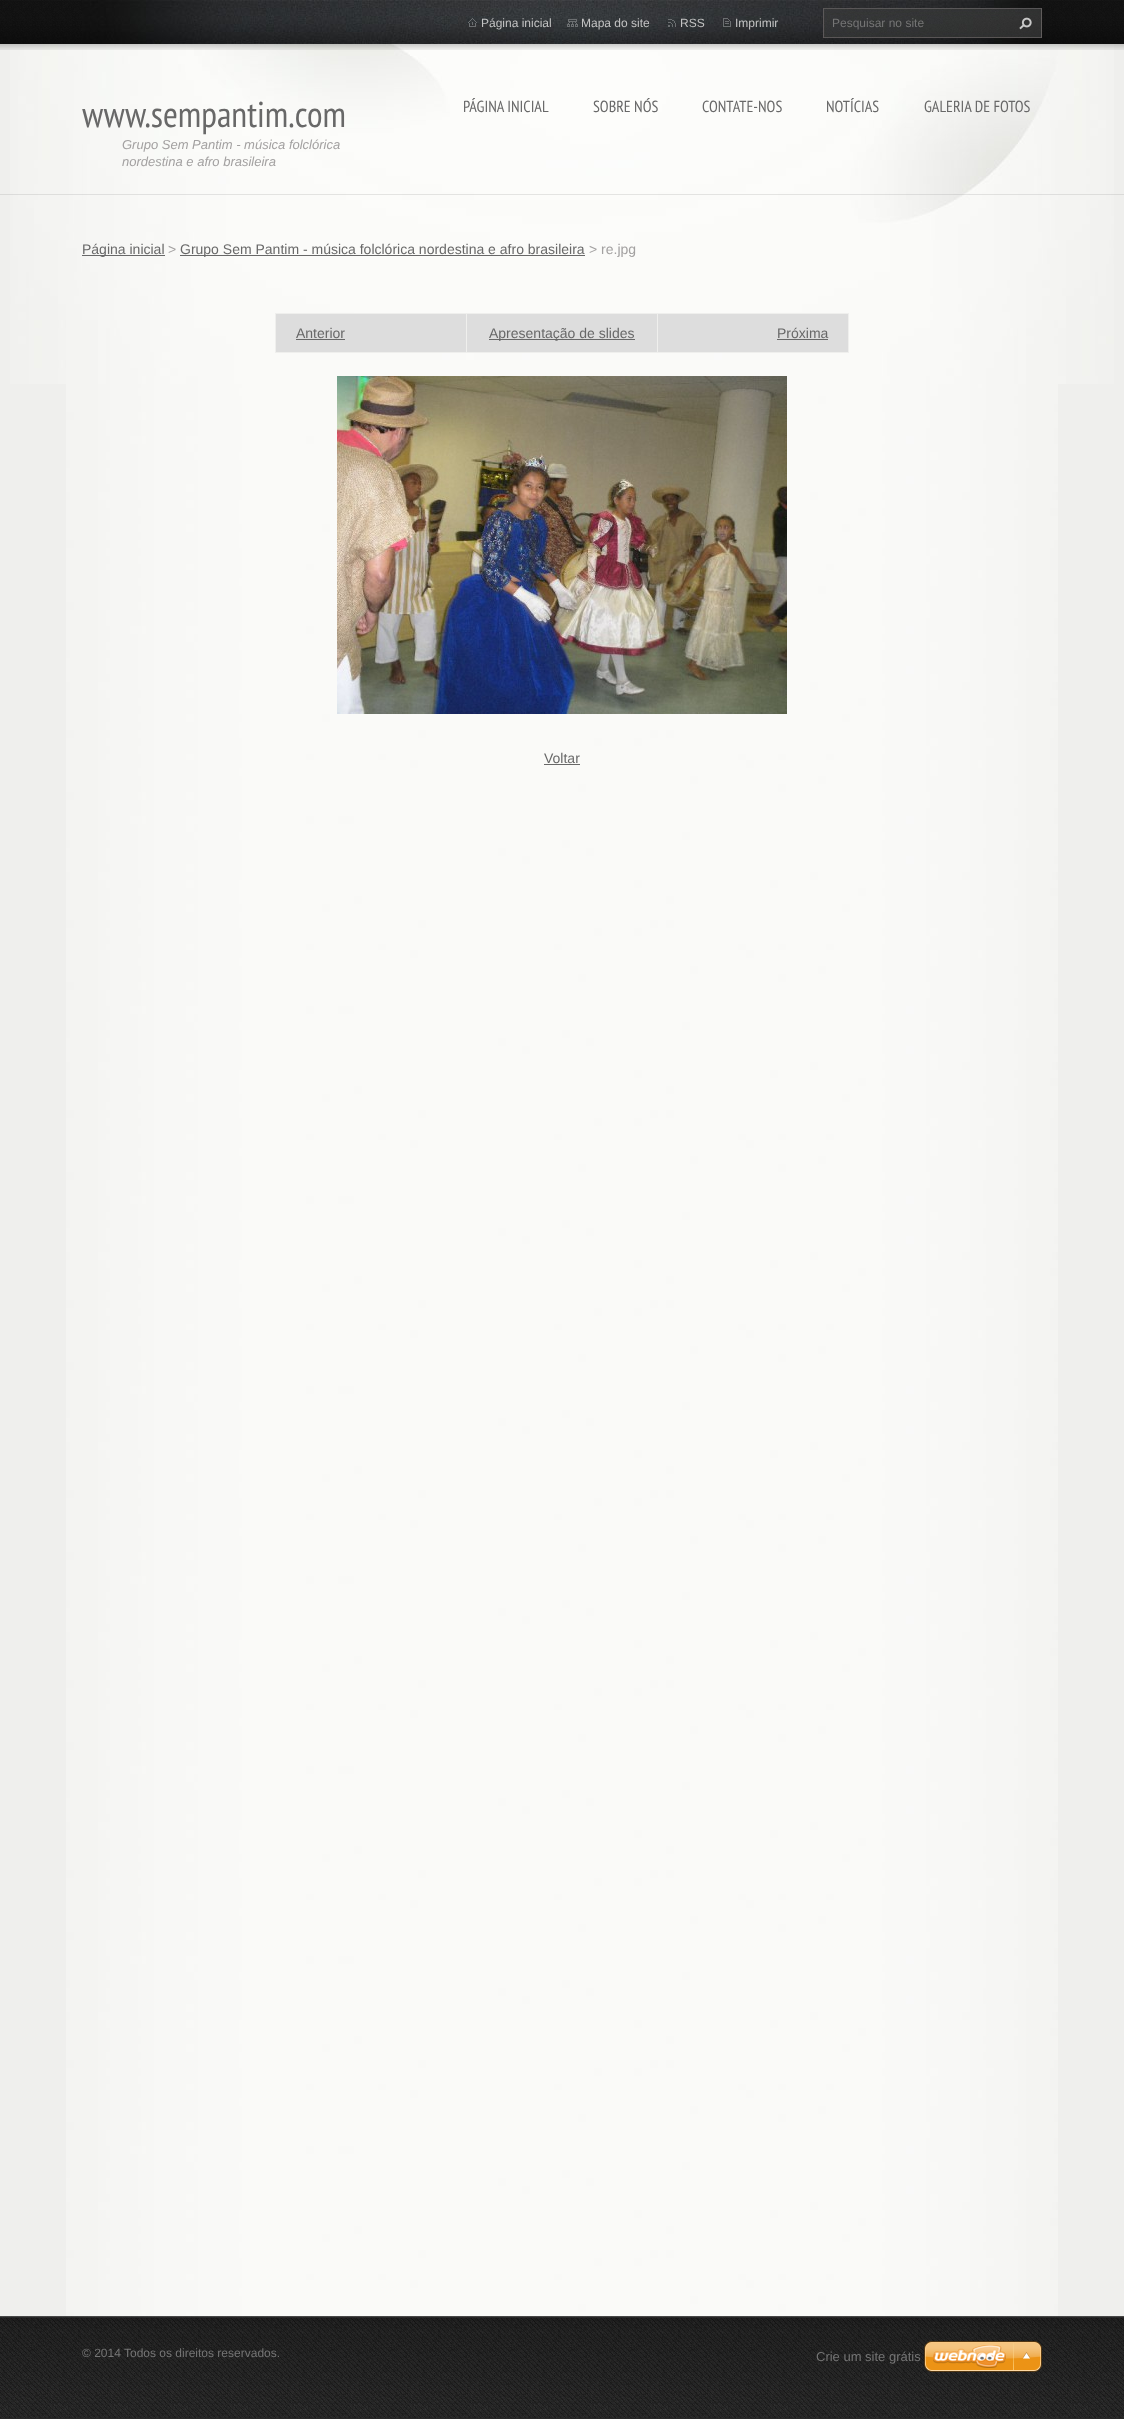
<svg xmlns="http://www.w3.org/2000/svg" width="1124" height="2419">
<style>
.a{font:12px Liberation Sans;fill:#c3c3c3}
.b{font:12px Liberation Sans;fill:#757575}
.c{font:36px PT Sans Narrow;fill:#686868}
.d{font:italic 13px Liberation Sans;fill:#a3a1a1}
.e{font:16px PT Sans Narrow;fill:#686868}
.f{font:14px Liberation Sans;fill:#686868}
.g{font:14px Liberation Sans;fill:#a3a1a1}
.h{font:13px Liberation Sans;fill:#757575}
</style>
<rect width="100%" height="100%" fill="#efefed"/>
<image href="1.png" x="66" y="384" width="992" height="1932"/>
<image href="2.png" x="10" y="44" width="1104" height="340"/>
<path fill="#9e9e9e42" d="M0 194h1124v1H0z"/>
<image href="3.png" x="0" y="0" width="1124" height="50"/>
<image href="4.png" x="82" y="0" width="960" height="44"/>
<image href="5.png" x="468" y="18" width="9" height="9"/>
<image href="6.png" x="567" y="19" width="11" height="8"/>
<image href="7.png" x="668" y="19" width="8" height="8"/>
<image href="8.png" x="723" y="18" width="8" height="9"/>
<image href="9.png" x="823" y="8" width="219" height="30"/>
<image href="10.png" x="1019" y="17" width="13" height="13"/>
<path fill="#686868" d="M82 255h83v1H82z"/>
<path fill="#686868" d="M180 255h405v1H180z"/>
<path fill="#efefed" d="M275 313h574v1H275z"/>
<path fill="#efefed" d="M275 313h1v40H275z"/>
<path fill="#ddd" d="M276 314h190v38H276z"/>
<path fill="#efefed" d="M848 313h1v40H848z"/>
<path fill="#efefed" d="M657 352h192v1H657z"/>
<path fill="#efefed" d="M657 313h1v40H657z"/>
<path fill="#efefed" d="M466 352h192v1H466z"/>
<path fill="#efefed" d="M466 313h1v40H466z"/>
<path fill="#efefed" d="M275 352h192v1H275z"/>
<path fill="#686868" d="M296 339h49v1H296z"/>
<path fill="#ddd" d="M467 314h190v38H467z"/>
<path fill="#686868" d="M489 339h146v1H489z"/>
<path fill="#ddd" d="M658 314h190v38H658z"/>
<path fill="#686868" d="M777 339h51v1H777z"/>
<image href="11.png" x="337" y="376" width="450" height="338"/>
<path fill="#686868" d="M544 764h36v1H544z"/>
<image href="12.png" x="0" y="2316" width="1124" height="103"/>
<image href="13.png" x="924" y="2341" width="118" height="31"/>
<text class="a" x="481" y="27">Página inicial</text>
<text class="a" x="581" y="27">Mapa do site</text>
<text class="a" x="680" y="27">RSS</text>
<text class="a" x="735" y="27">Imprimir</text>
<text class="b" x="832" y="27">Pesquisar no site</text>
<text class="c" x="82" y="127">www.sempantim.com</text>
<text class="d" x="122" y="149">Grupo Sem Pantim - música folclórica</text>
<text class="d" x="122" y="166">nordestina e afro brasileira</text>
<text class="e" x="463" y="112">PÁGINA INICIAL</text>
<text class="e" x="593" y="112">SOBRE NÓS</text>
<text class="e" x="702" y="112">CONTATE-NOS</text>
<text class="e" x="826" y="112">NOTÍCIAS</text>
<text class="e" x="924" y="112">GALERIA DE FOTOS</text>
<text class="f" x="82" y="254">Página inicial</text>
<text class="g" x="168" y="254">&gt;</text>
<text class="f" x="180" y="254">Grupo Sem Pantim - música folclórica nordestina e afro brasileira</text>
<text class="g" x="589" y="254">&gt; re.jpg</text>
<text class="f" x="296" y="338">Anterior</text>
<text class="f" x="489" y="338">Apresentação de slides</text>
<text class="f" x="777" y="338">Próxima</text>
<text class="f" x="544" y="763">Voltar</text>
<text class="b" x="82" y="2357">© 2014 Todos os direitos reservados.</text>
<text class="h" x="816" y="2361">Crie um site grátis</text>
</svg>
